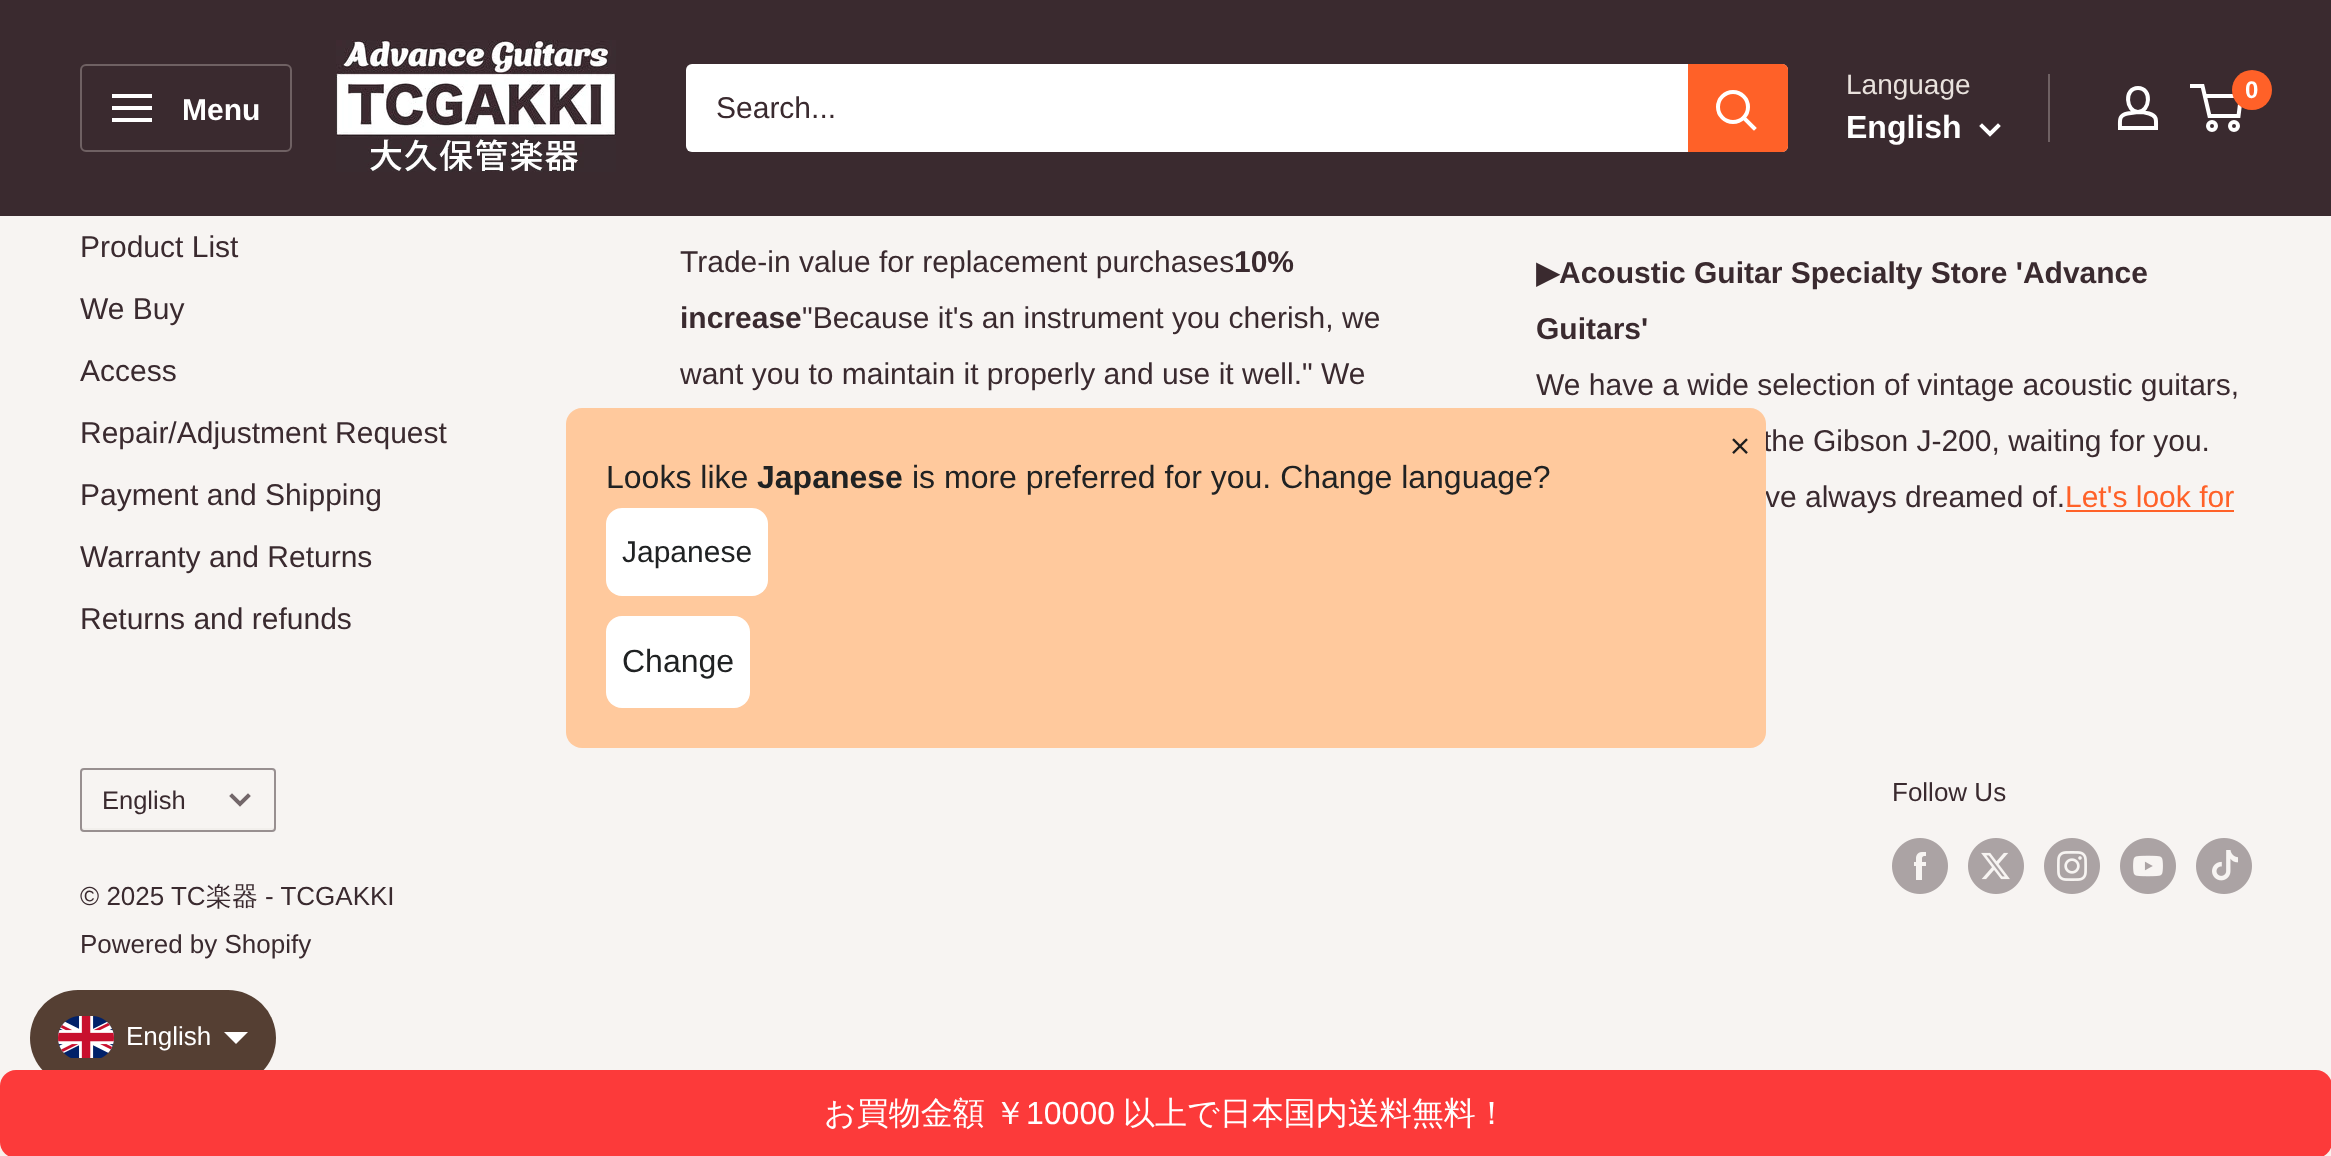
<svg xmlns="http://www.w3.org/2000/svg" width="2331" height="1156">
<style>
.a{font:bold 30px Liberation Sans;fill:#fff}
.b{font:30px Liberation Sans;fill:#3a2a2f}
.c{font:28px Liberation Sans;fill:#e9e2dd}
.d{font:bold 32px Liberation Sans;fill:#fff}
.e{font:bold 24px Liberation Sans;fill:#fff}
.f{font:bold 30px Liberation Sans;fill:#3a2a2f}
.g{font:bold 30px DejaVu Sans;fill:#3a2a2f}
.h{font:30px Liberation Sans;fill:#ff6128}
.i{font:25.5px Liberation Sans;fill:#3a2a2f}
.j{font:26px Liberation Sans;fill:#3a2a2f}
.k{font:500 26px WenQuanYi Zen Hei;fill:#3a2a2f}
.l{font:32px Liberation Sans;fill:#202223}
.m{font:bold 32px Liberation Sans;fill:#202223}
.n{font:30px Liberation Sans;fill:#202223}
.o{font:26px Liberation Sans;fill:#fff}
.p{font:500 32px WenQuanYi Zen Hei;fill:#fff}
.q{font:32px Liberation Sans;fill:#fff}
</style>
<rect width="100%" height="100%" fill="#f9f1ec"/>
<path fill="#3a2a2f" d="M0 0h2331v216H0z"/>
<rect fill="none" stroke="#6f6163" stroke-width="2" x="81" y="65" width="210" height="86" rx="5"/>
<path fill="#fff" fill-rule="evenodd" d="M112 118h40v4h-40zm0-24h40v4h-40zm0 12h40v4h-40z"/>
<image href="1.png" x="336" y="40" width="280" height="132"/>
<rect fill="#fff" x="686" y="64" width="1102" height="88" rx="6"/>
<path fill="#ff6128" d="M1688 64h94c3.5 0 6 2.5 6 6v76c0 3.5-2.5 6-6 6h-94z"/>
<path fill="none" stroke="#fff" stroke-width="4" stroke-linecap="square" d="M1754 128l-10-10"/>
<circle fill="none" stroke="#fff" stroke-width="4" cx="1733" cy="107" r="15"/>
<path fill="none" stroke="#fff" stroke-width="4" stroke-linecap="square" d="M1998 126l-8 8l-8-8"/>
<path fill="#6f6163" d="M2048 74h2v68H2048z"/>
<path fill="none" stroke="#fff" stroke-width="4" d="M2138 112c4 0 7.5 .5 11 1.5c8.5 2.5 7 7 7 14.5h-36c0-8-1.5-12.5 7.5-14.5zm0 0c-12 0-14.5-24 0-24c14.5 0 12 24 0 24z"/>
<circle fill="none" stroke="#fff" stroke-width="4" cx="2212" cy="126" r="4"/>
<circle fill="none" stroke="#fff" stroke-width="4" cx="2234" cy="126" r="4"/>
<path fill="none" stroke="#fff" stroke-width="4" d="M2204.5 96h36.5l-2.5 20h-29l-7-30h-12.5"/>
<circle fill="#ff6128" cx="2252" cy="90" r="20"/>
<path fill="#f7f4f2" d="M0 216h2331v854H0z"/>
<path fill="#ff6128" d="M2066 510h168v2H2066z"/>
<path fill="#f2efec" d="M82 826c0 2 0 4 2 4h188c2 0 2-2 2-4c0 1-1 2-2 2h-188l-2-1z"/>
<rect fill="none" stroke="#988f90" stroke-width="2" x="81" y="769" width="194" height="62" rx="3"/>
<path fill="none" stroke="#73676a" stroke-width="4" stroke-linecap="square" d="M248 796l-8 8l-8-8"/>
<image href="2.png" x="1892" y="838" width="56" height="56"/>
<image href="3.png" x="1968" y="838" width="56" height="56"/>
<image href="4.png" x="2044" y="838" width="56" height="56"/>
<image href="5.png" x="2120" y="838" width="56" height="56"/>
<image href="6.png" x="2196" y="838" width="56" height="56"/>
<rect fill="#553f33" x="30" y="990" width="246" height="96" rx="48"/>
<image href="8.png" x="58" y="1016" width="56" height="42"/>
<path fill="#fff" d="M224 1032h24l-12 12z"/>
<rect fill="#fc3a3a" y="1070" width="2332" height="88" rx="16"/>
<text class="a" x="182" y="120">Menu</text>
<text class="b" x="716" y="118">Search...</text>
<text class="c" x="1846" y="94">Language</text>
<text class="d" x="1846" y="138">English</text>
<text class="e" x="2245" y="98">0</text>
<text class="b" x="80" y="257">Product List</text>
<text class="b" x="80" y="319">We Buy</text>
<text class="b" x="80" y="381">Access</text>
<text class="b" x="80" y="443">Repair/Adjustment Request</text>
<text class="b" x="80" y="505">Payment and Shipping</text>
<text class="b" x="80" y="567">Warranty and Returns</text>
<text class="b" x="80" y="629">Returns and refunds</text>
<text class="b" x="680" y="272">Trade-in value for replacement purchases</text>
<text class="f" x="1234" y="272">10%</text>
<text class="f" x="680" y="328">increase</text>
<text class="b" x="802" y="328">"Because it's an instrument you cherish, we</text>
<text class="b" x="680" y="384">want you to maintain it properly and use it well." We</text>
<text class="g" x="1536" y="283">▶︎</text>
<text class="f" x="1559" y="283">Acoustic Guitar Specialty Store 'Advance</text>
<text class="f" x="1536" y="339">Guitars'</text>
<text class="b" x="1536" y="395">We have a wide selection of vintage acoustic guitars,</text>
<text class="b" x="1763" y="451">the Gibson J-200, waiting for you.</text>
<text class="b" x="1765" y="507">ve always dreamed of.</text>
<text class="h" x="2065" y="507">Let's look for</text>
<text class="i" x="102" y="809">English</text>
<text class="j" x="80" y="905">© 2025 TC</text>
<text class="k" x="206" y="905">楽器</text>
<text class="j" x="265" y="905">- TCGAKKI</text>
<text class="j" x="80" y="953">Powered by Shopify</text>
<text class="j" x="1892" y="801">Follow Us</text>
<rect fill="#ffc99d" x="566" y="408" width="1200" height="340" rx="16"/>
<image href="7.png" x="1732" y="438" width="16" height="16"/>
<text class="l" x="606" y="488">Looks like</text>
<text class="m" x="757" y="488">Japanese</text>
<text class="l" x="912" y="488">is more preferred for you. Change language?</text>
<rect fill="#fff" x="606" y="508" width="162" height="88" rx="16"/>
<text class="n" x="622" y="562">Japanese</text>
<rect fill="#fff" x="606" y="616" width="144" height="92" rx="16"/>
<text class="l" x="622" y="672">Change</text>
<text class="o" x="126" y="1045">English</text>
<text class="p" x="824" y="1124">お買物金額</text>
<text class="p" x="994" y="1124">￥</text>
<text class="q" x="1026" y="1124">10000</text>
<text class="p" x="1123" y="1124">以上で日本国内送料無料！</text>
</svg>
